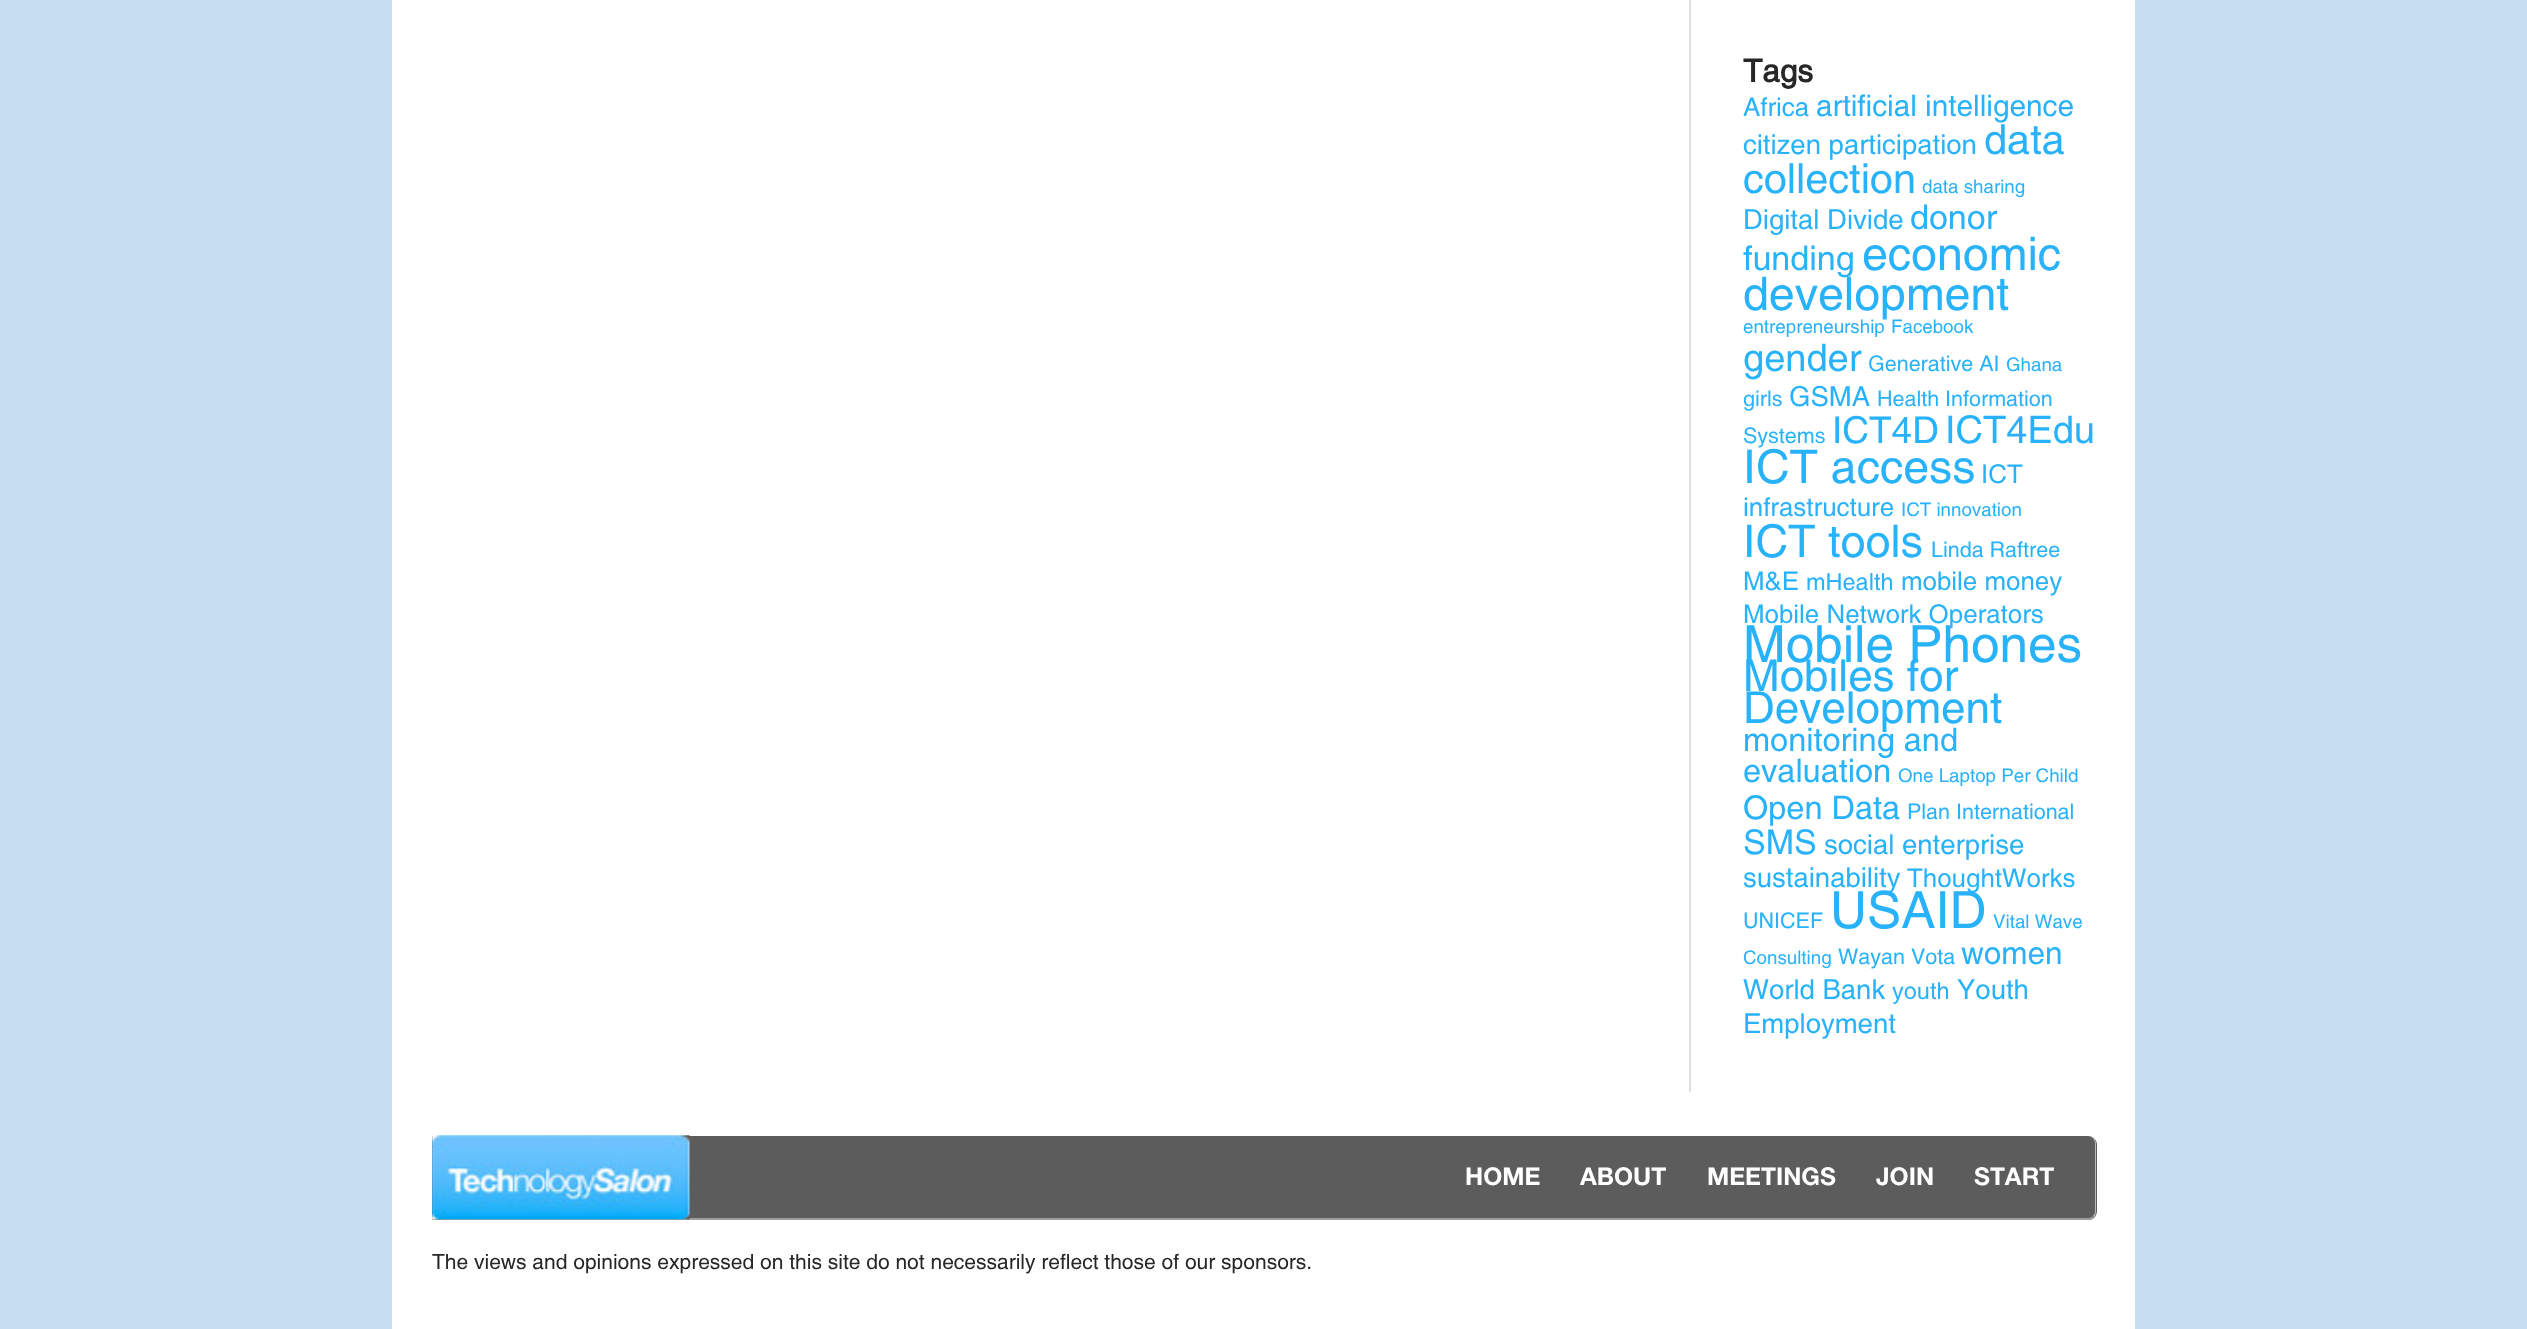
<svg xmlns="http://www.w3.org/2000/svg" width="2527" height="1329">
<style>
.a{font:bold 31.5px Helvetica;fill:#272727}
.b{font:25.9px Helvetica;fill:#28b2fa}
.c{font:29.75px Helvetica;fill:#28b2fa}
.d{font:27.5px Helvetica;fill:#28b2fa}
.e{font:41.5px Helvetica;fill:#28b2fa}
.f{font:18.75px Helvetica;fill:#28b2fa}
.g{font:34px Helvetica;fill:#28b2fa}
.h{font:46.5px Helvetica;fill:#28b2fa}
.i{font:38px Helvetica;fill:#28b2fa}
.j{font:21.5px Helvetica;fill:#28b2fa}
.k{font:37px Helvetica;fill:#28b2fa}
.l{font:45px Helvetica;fill:#28b2fa}
.m{font:23.5px Helvetica;fill:#28b2fa}
.n{font:51.25px Helvetica;fill:#28b2fa}
.o{font:44px Helvetica;fill:#28b2fa}
.p{font:32.5px Helvetica;fill:#28b2fa}
.q{font:31.5px Helvetica;fill:#28b2fa}
.r{font:bold 24.5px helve;fill:#fff}
.s{font:21px Helvetica;fill:#272727}
</style>
<rect width="100%" height="100%" fill="#c6dff0"/>
<path fill="#fff" d="M392 0h1743v1329H392z"/>
<path fill="#e0e0e0" d="M1689 0h2v1092H1689z"/>
<path fill="#5c5c5c" d="M432 1136h1656c5 0 9 4 9 9v66c0 5-4 9-9 9h-1656z"/>
<path fill="#bcbcbc" d="M2094 1217l-1-1c1-1 2-3 2-5v-67c0-4-3-8-7-8c5 0 8 4 8 8v67c0 2-1 5-2 6z"/>
<path fill="#9d9d9d" d="M432 1218h1656c2 0 4-1 5-2l1 1c-1 1-2 2-4 3h-1658z"/>
<image href="1.png" x="432" y="1135" width="258" height="85"/>
<text class="a" x="1743" y="82">Tags</text>
<text class="b" x="1743" y="116">Africa</text>
<text class="c" x="1816" y="116">artificial intelligence</text>
<text class="d" x="1743" y="154">citizen participation</text>
<text class="e" x="1984" y="154">data</text>
<text class="e" x="1743" y="193">collection</text>
<text class="f" x="1922" y="193">data sharing</text>
<text class="d" x="1743" y="229">Digital Divide</text>
<text class="g" x="1910" y="229">donor</text>
<text class="g" x="1743" y="270">funding</text>
<text class="h" x="1862" y="270">economic</text>
<text class="h" x="1743" y="310">development</text>
<text class="f" x="1743" y="333">entrepreneurship</text>
<text class="f" x="1891" y="333">Facebook</text>
<text class="i" x="1743" y="371">gender</text>
<text class="j" x="1868" y="371">Generative AI</text>
<text class="f" x="2006" y="371">Ghana</text>
<text class="j" x="1743" y="406">girls</text>
<text class="d" x="1789" y="406">GSMA</text>
<text class="j" x="1877" y="406">Health Information</text>
<text class="j" x="1743" y="443">Systems</text>
<text class="k" x="1832" y="443">ICT4D</text>
<text class="i" x="1945" y="443">ICT4Edu</text>
<text class="h" x="1743" y="483">ICT access</text>
<text class="b" x="1981" y="483">ICT</text>
<text class="b" x="1743" y="516">infrastructure</text>
<text class="f" x="1901" y="516">ICT innovation</text>
<text class="l" x="1743" y="557">ICT tools</text>
<text class="j" x="1931" y="557">Linda Raftree</text>
<text class="b" x="1743" y="590">M&amp;E</text>
<text class="m" x="1806" y="590">mHealth</text>
<text class="b" x="1901" y="590">mobile money</text>
<text class="b" x="1743" y="623">Mobile Network Operators</text>
<text class="n" x="1743" y="662">Mobile Phones</text>
<text class="o" x="1743" y="691">Mobiles for</text>
<text class="o" x="1743" y="723">Development</text>
<text class="p" x="1743" y="751">monitoring and</text>
<text class="p" x="1743" y="782">evaluation</text>
<text class="f" x="1898" y="782">One Laptop Per Child</text>
<text class="p" x="1743" y="819">Open Data</text>
<text class="j" x="1907" y="819">Plan International</text>
<text class="g" x="1743" y="854">SMS</text>
<text class="d" x="1824" y="854">social enterprise</text>
<text class="d" x="1743" y="887">sustainability</text>
<text class="b" x="1907" y="887">ThoughtWorks</text>
<text class="j" x="1743" y="928">UNICEF</text>
<text class="n" x="1830" y="928">USAID</text>
<text class="f" x="1993" y="928">Vital Wave</text>
<text class="f" x="1743" y="964">Consulting</text>
<text class="j" x="1838" y="964">Wayan Vota</text>
<text class="q" x="1961" y="964">women</text>
<text class="d" x="1743" y="999">World Bank</text>
<text class="m" x="1892" y="999">youth</text>
<text class="d" x="1957" y="999">Youth</text>
<text class="d" x="1743" y="1033">Employment</text>
<text class="r" x="1465" y="1185">HOME</text>
<text class="r" x="1580" y="1185">ABOUT</text>
<text class="r" x="1707" y="1185">MEETINGS</text>
<text class="r" x="1876" y="1185">JOIN</text>
<text class="r" x="1974" y="1185">START</text>
<text class="s" x="432" y="1269">The views and opinions expressed on this site do not necessarily reflect those of our sponsors.</text>
</svg>
